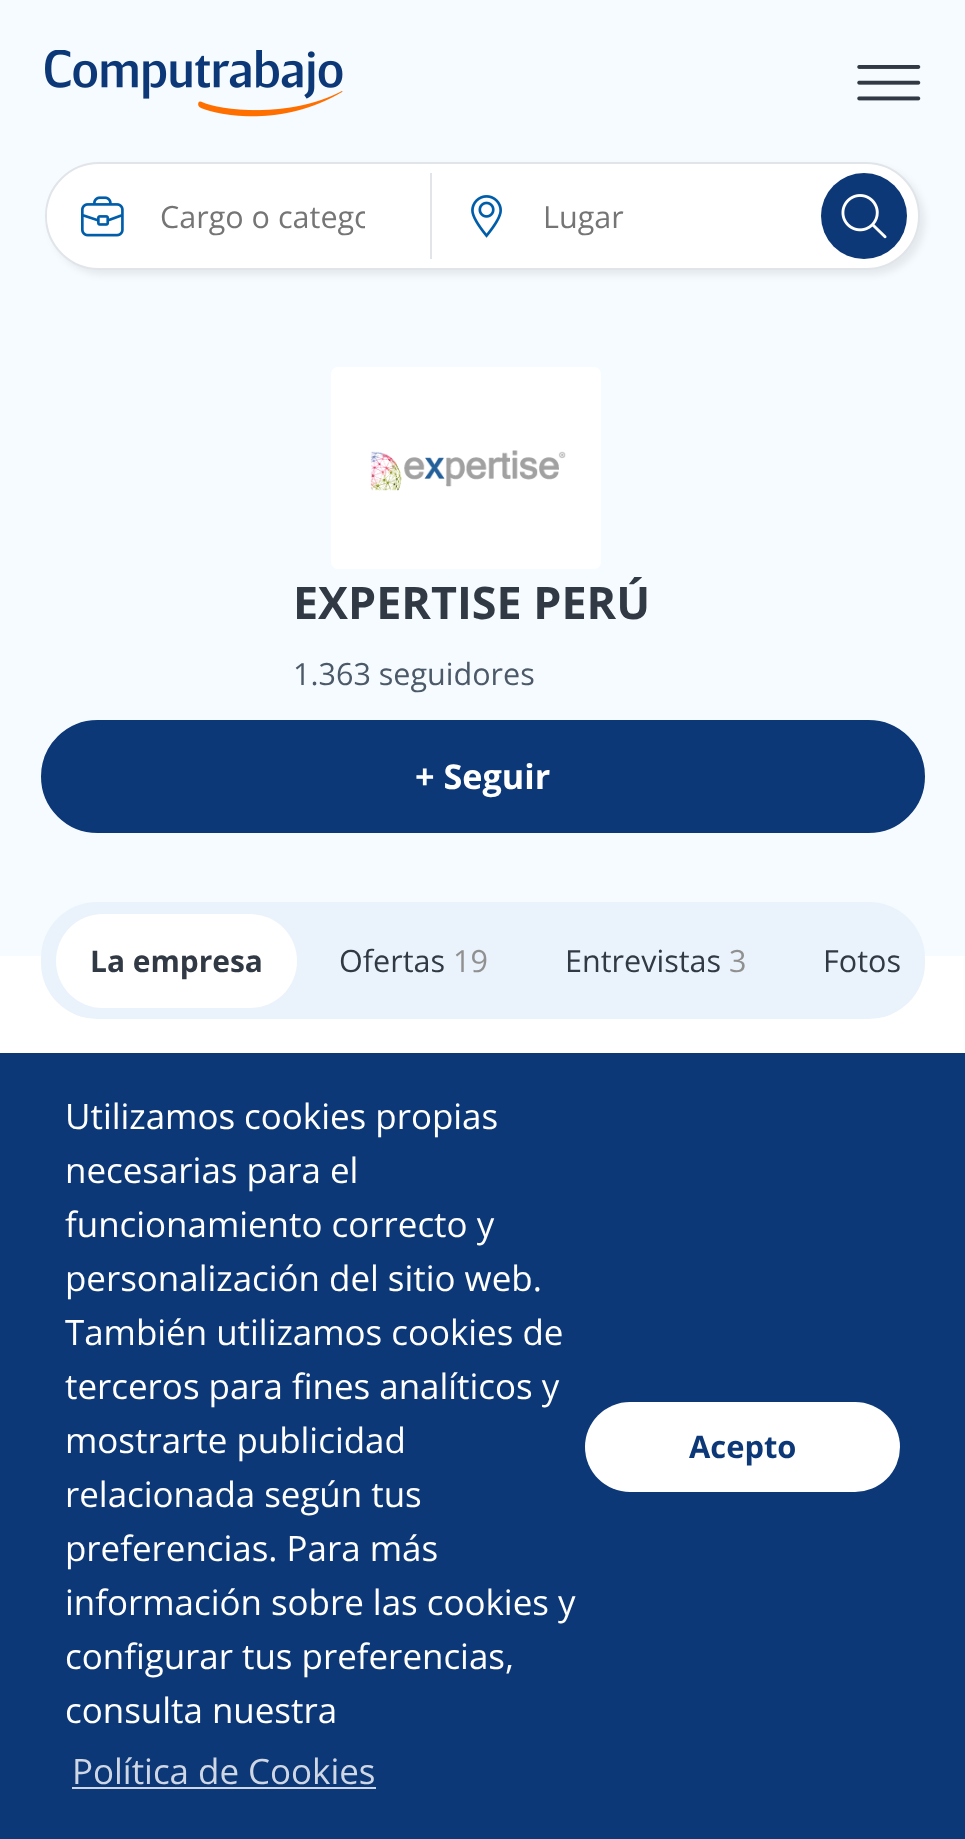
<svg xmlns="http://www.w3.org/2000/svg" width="965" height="1839">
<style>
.a{font:31.5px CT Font;fill:#757575}
.b{font:bold 47.25px CT Font;fill:#313944}
.c{font:31.5px CT Font;fill:#4b5968}
.d{font:bold 36px CT Font;fill:#fff}
.e{font:bold 31.5px CT Font;fill:#313944}
.f{font:31.5px CT Font;fill:#313944}
.g{font:31.5px CT Font;fill:#909090}
.h{font:36px CT Font;fill:#fff}
.i{font:36px CT Font;fill:#cfd7e4}
.j{font:bold 32.5px CT Font;fill:#0d3878}
</style>
<defs>
<clipPath id="clip1"><path d="M160 194h205v42H160z"/></clipPath>
</defs>
<rect width="100%" height="100%" fill="#f6fbff"/>
<image href="1.png" x="45" y="50" width="298" height="67"/>
<image href="2.png" x="857" y="65" width="64" height="36"/>
<rect fill="#00000012" filter="blur(3.5px)" x="50" y="167" width="875" height="108" rx="54"/>
<rect fill="#fff" stroke="#e1e5ea" stroke-width="2" x="46" y="163" width="873" height="106" rx="53"/>
<rect fill="#fff" x="47" y="173" width="383" height="86" rx="43"/>
<image href="3.png" x="81" y="196" width="43" height="41"/>
<path fill="#e1e5ea" d="M430 173h2v86H430z"/>
<image href="4.png" x="471" y="195" width="31" height="43"/>
<circle fill="#0d3878" cx="864" cy="216" r="43"/>
<image href="5.png" x="841" y="194" width="46" height="45"/>
<rect fill="#fff" x="331" y="367" width="270" height="202" rx="7"/>
<image href="6.png" x="370" y="450" width="196" height="41"/>
<rect fill="#0d3878" stroke="#0d3878" stroke-width="2" x="42" y="721" width="882" height="111" rx="55.5"/>
<path fill="#fff" d="M0 956h965v97H0z"/>
<rect fill="#eaf3fb" x="41" y="902" width="884" height="117" rx="56"/>
<rect fill="#fff" x="56" y="914" width="241" height="94" rx="47"/>
<path fill="#0d3878" d="M0 1053h965v786H0z"/>
<path fill="#cfd7e4" d="M72 1787h304v2H72z"/>
<rect fill="#fff" x="585" y="1402" width="315" height="90" rx="45"/>
<g clip-path="url(#clip1)">
<text class="a" x="160" y="228">Cargo o catego</text>
</g>
<text class="a" x="543" y="228">Lugar</text>
<text class="b" x="293" y="619">EXPERTISE PERÚ</text>
<text class="c" x="293" y="685">1.363 seguidores</text>
<text class="d" x="415" y="789">+ Seguir</text>
<text class="e" x="90" y="972">La empresa</text>
<text class="f" x="339" y="972">Ofertas</text>
<text class="g" x="453" y="972">19</text>
<text class="f" x="565" y="972">Entrevistas</text>
<text class="g" x="729" y="972">3</text>
<text class="f" x="823" y="972">Fotos</text>
<text class="h" x="65" y="1129">Utilizamos cookies propias</text>
<text class="h" x="65" y="1183">necesarias para el</text>
<text class="h" x="65" y="1237">funcionamiento correcto y</text>
<text class="h" x="65" y="1291">personalización del sitio web.</text>
<text class="h" x="65" y="1345">También utilizamos cookies de</text>
<text class="h" x="65" y="1399">terceros para fines analíticos y</text>
<text class="h" x="65" y="1453">mostrarte publicidad</text>
<text class="h" x="65" y="1507">relacionada según tus</text>
<text class="h" x="65" y="1561">preferencias. Para más</text>
<text class="h" x="65" y="1615">información sobre las cookies y</text>
<text class="h" x="65" y="1669">configurar tus preferencias,</text>
<text class="h" x="65" y="1723">consulta nuestra</text>
<text class="i" x="72" y="1784">Política de Cookies</text>
<text class="j" x="689" y="1458">Acepto</text>
</svg>
